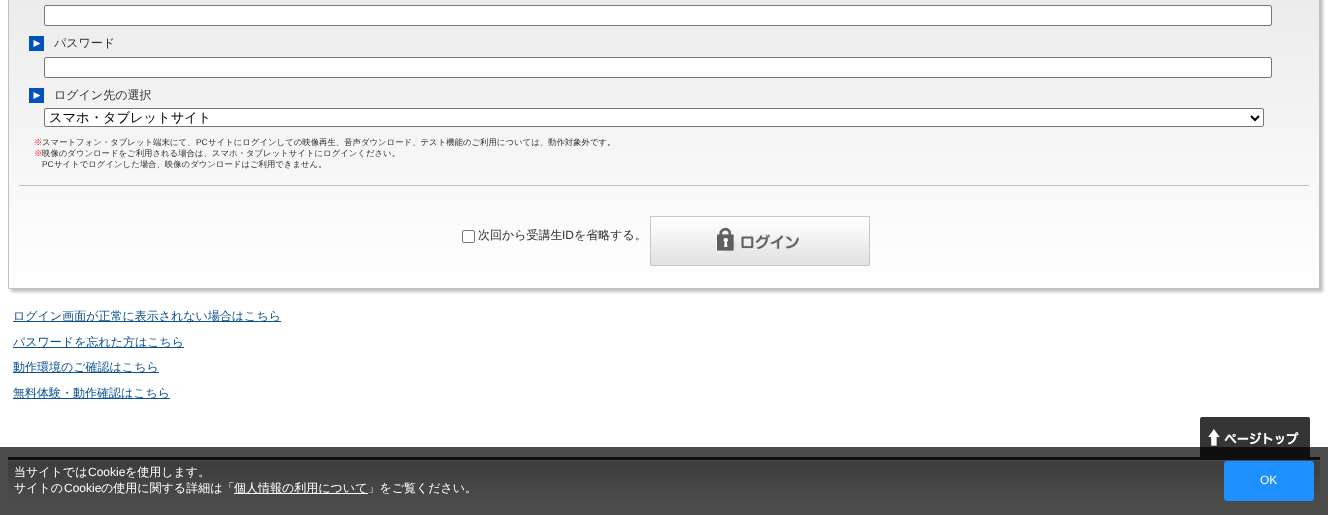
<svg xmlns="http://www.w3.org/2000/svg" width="1328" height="515">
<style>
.a{font:500 12px WenQuanYi Zen Hei;fill:#2e302e}
.b{font:500 13.25px WenQuanYi Zen Hei;fill:#000}
.c{font:500 8.4px WenQuanYi Zen Hei;fill:#f00}
.d{font:500 8.4px WenQuanYi Zen Hei;fill:#2e302e}
.e{font:8.4px Liberation Sans;fill:#2e302e}
.f{font:12px Liberation Sans;fill:#2e302e}
.g{font:500 12px WenQuanYi Zen Hei;fill:#0a4f90}
.h{font:500 12px WenQuanYi Zen Hei;fill:#fff}
.i{font:12px Liberation Sans;fill:#fff}
</style>
<defs>
<linearGradient id="g1" gradientUnits="userSpaceOnUse" x1="9" y1="-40" x2="9" y2="288"><stop offset="0" stop-color="#e9e9e9"/><stop offset="1" stop-color="#fff"/></linearGradient>
</defs>
<rect width="100%" height="100%" fill="#fff"/>
<path fill="#c1c1c1" filter="blur(1.5px)" d="M11 -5h1312v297H11z"/>
<path fill="url(#g1)" d="M9 0h1310v288H9z"/>
<path fill="none" stroke="#c1c1c1" d="M8.5 -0.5h1311v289H8.5z"/>
<path fill="#c1c1c1" d="M19 185h1290v1H19z"/>
<rect fill="#fff" stroke="#767676" x="44.5" y="5.5" width="1227" height="20" rx="1.5"/>
<image href="1.png" x="29" y="36" width="15" height="15"/>
<rect fill="#fff" stroke="#767676" x="44.5" y="57.5" width="1227" height="20" rx="1.5"/>
<image href="1.png" x="29" y="88" width="15" height="15"/>
<rect fill="#fff" stroke="#767676" x="44.5" y="108.5" width="1219" height="18" rx="1.5"/>
<path fill="none" stroke="#000" stroke-width="2" d="M1251 116l4 4l4-4"/>
<rect fill="#fff" stroke="#767676" x="462.5" y="230.5" width="12" height="12" rx="1.5"/>
<image href="2.png" x="650" y="216" width="220" height="50"/>
<path fill="#0a4f90" d="M13 321h268v1H13z"/>
<path fill="#0a4f90" d="M13 347h171v1H13z"/>
<path fill="#0a4f90" d="M13 372h146v1H13z"/>
<path fill="#0a4f90" d="M13 398h157v1H13z"/>
<image href="3.png" x="8" y="457" width="1312" height="43"/>
<image href="4.png" x="1200" y="417" width="110" height="40"/>
<path fill="#000000b3" d="M0 447h1328v68H0z"/>
<path fill="#fff" d="M234 493h134v1H234z"/>
<rect fill="#1e90ff" x="1224" y="461" width="90" height="40" rx="3"/>
<text class="a" x="54" y="47">パスワード</text>
<text class="a" x="54" y="99">ログイン先の選択</text>
<text class="b" x="49" y="122">スマホ・タブレットサイト</text>
<text class="c" x="34" y="145">※</text>
<text class="d" x="42" y="145">スマートフォン・タブレット端末にて、</text>
<text class="e" x="196" y="145">PC</text>
<text class="d" x="208" y="145">サイトにログインしての映像再生、音声ダウンロード、テスト機能のご利用については、動作対象外です。</text>
<text class="c" x="34" y="156">※</text>
<text class="d" x="42" y="156">映像のダウンロードをご利用される場合は、スマホ・タブレットサイトにログインください。</text>
<text class="e" x="42" y="167">PC</text>
<text class="d" x="54" y="167">サイトでログインした場合、映像のダウンロードはご利用できません。</text>
<text class="a" x="478" y="239">次回から受講生</text>
<text class="f" x="562" y="239">ID</text>
<text class="a" x="574" y="239">を省略する。</text>
<text class="g" x="13" y="320">ログイン画面が正常に表示されない場合はこちら</text>
<text class="g" x="13" y="346">パスワードを忘れた方はこちら</text>
<text class="g" x="13" y="371">動作環境のご確認はこちら</text>
<text class="g" x="13" y="397">無料体験・動作確認はこちら</text>
<text class="h" x="14" y="476">当サイトでは</text>
<text class="i" x="88" y="476">Cookie</text>
<text class="h" x="125" y="476">を使用します。</text>
<text class="h" x="14" y="492">サイトの</text>
<text class="i" x="64" y="492">Cookie</text>
<text class="h" x="101" y="492">の使用に関する詳細は「</text>
<text class="h" x="234" y="492">個人情報の利用について」をご覧ください。</text>
<text class="i" x="1260" y="484">OK</text>
</svg>
